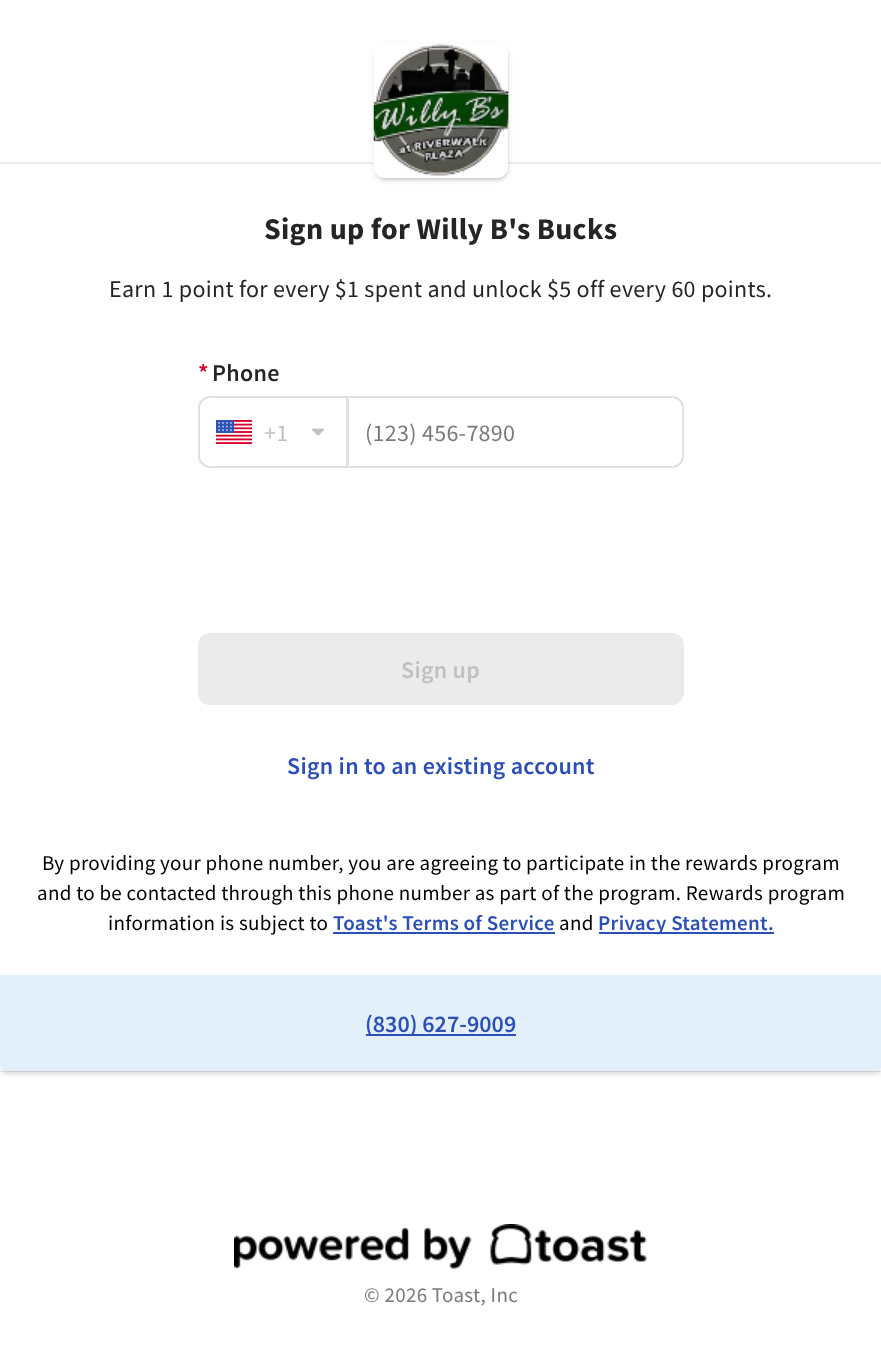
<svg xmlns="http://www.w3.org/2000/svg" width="881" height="1358">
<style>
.a{font:bold 30px Source Sans Pro;letter-spacing:0.3px;fill:#252525}
.b{font:24px Source Sans Pro;letter-spacing:0.3px;fill:#252525}
.c{font:600 24px Source Sans Pro;letter-spacing:0.3px;fill:#d40023}
.d{font:600 24px Source Sans Pro;letter-spacing:0.3px;fill:#252525}
.e{font:24px Source Sans Pro;letter-spacing:0.3px;fill:#c0c0c0}
.f{font:24px Source Sans Pro;letter-spacing:0.3px;fill:#7a7a7a}
.g{font:600 24px Source Sans Pro;letter-spacing:0.3px;fill:#c0c0c0}
.h{font:600 24px Source Sans Pro;letter-spacing:0.3px;fill:#2b4fb9}
.i{font:21px Source Sans Pro;letter-spacing:0.3px;fill:#000}
.j{font:600 21px Source Sans Pro;letter-spacing:0.3px;fill:#2b4fb9}
.k{font:600 24px Source Sans Pro;fill:#2b4fb9}
.l{font:21px Source Sans Pro;letter-spacing:0.3px;fill:#7a7a7a}
</style>
<defs>
<clipPath id="clip1"><path d="M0 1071h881v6H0z"/></clipPath>
<clipPath id="clip2"><path d="M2 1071h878v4H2z"/></clipPath>
</defs>
<rect width="100%" height="100%" fill="#fff"/>
<g clip-path="url(#clip1)">
<path fill="#0000000f" filter="blur(3px)" d="M0 167h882v909H0z"/>
</g>
<g clip-path="url(#clip2)">
<path fill="#00000017" filter="blur(2px)" d="M3 170h876v903H3z"/>
</g>
<path fill="#ebebeb" d="M0 162h881v2H0z"/>
<path fill="#00000014" d="M0 1070h881v2H0z"/>
<rect fill="#0000000a" filter="blur(4px)" x="374" y="45" width="135" height="135" rx="12"/>
<rect fill="#0000000f" filter="blur(1.5px)" x="374" y="47" width="135" height="135" rx="12"/>
<rect fill="#00000017" filter="blur(1px)" x="377" y="51" width="129" height="129" rx="9"/>
<rect fill="none" stroke="#00000014" stroke-width="2" x="375" y="45" width="133" height="133" rx="11"/>
<image href="1.png" x="373" y="43" width="136" height="136"/>
<path fill="none" stroke="#e0e0e0" stroke-width="2" d="M210 397h137v70h-137c-6 0-11-5-11-11v-48c0-6 5-11 11-11z"/>
<image href="2.png" x="216" y="420" width="36" height="24"/>
<image href="3.png" x="312" y="428" width="12" height="8"/>
<path fill="#fff" stroke="#e0e0e0" stroke-width="2" d="M348 397h324c6 0 11 5 11 11v48c0 6-5 11-11 11h-324z"/>
<rect fill="#ebebeb" x="198" y="633" width="486" height="72" rx="12"/>
<path fill="#2b4fb9" d="M333 932h222v2H333z"/>
<path fill="#2b4fb9" d="M599 932h175v2H599z"/>
<path fill="#e3f0fb" d="M0 975h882v90c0 3.5-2.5 6-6 6h-870c-3.5 0-6-2.5-6-6z"/>
<path fill="#2b4fb9" d="M366 1034h150v2H366z"/>
<image href="4.png" x="234" y="1224" width="413" height="45"/>
<text class="a" x="264" y="239">Sign up for Willy B's Bucks</text>
<text class="b" x="109" y="297">Earn 1 point for every $1 spent and unlock $5 off every 60 points.</text>
<text class="c" x="198" y="381">*</text>
<text class="d" x="212" y="381">Phone</text>
<text class="e" x="264" y="441">+1</text>
<text class="f" x="365" y="441">(123) 456-7890</text>
<text class="g" x="401" y="678">Sign up</text>
<text class="h" x="287" y="774">Sign in to an existing account</text>
<text class="i" x="42" y="870">By providing your phone number, you are agreeing to participate in the rewards program</text>
<text class="i" x="37" y="900">and to be contacted through this phone number as part of the program. Rewards program</text>
<text class="i" x="108" y="930">information is subject to</text>
<text class="j" x="333" y="930">Toast's Terms of Service</text>
<text class="i" x="559" y="930">and</text>
<text class="j" x="598" y="930">Privacy Statement.</text>
<text class="k" x="365" y="1032">(830) 627-9009</text>
<text class="l" x="364" y="1302">© 2026 Toast, Inc</text>
</svg>
